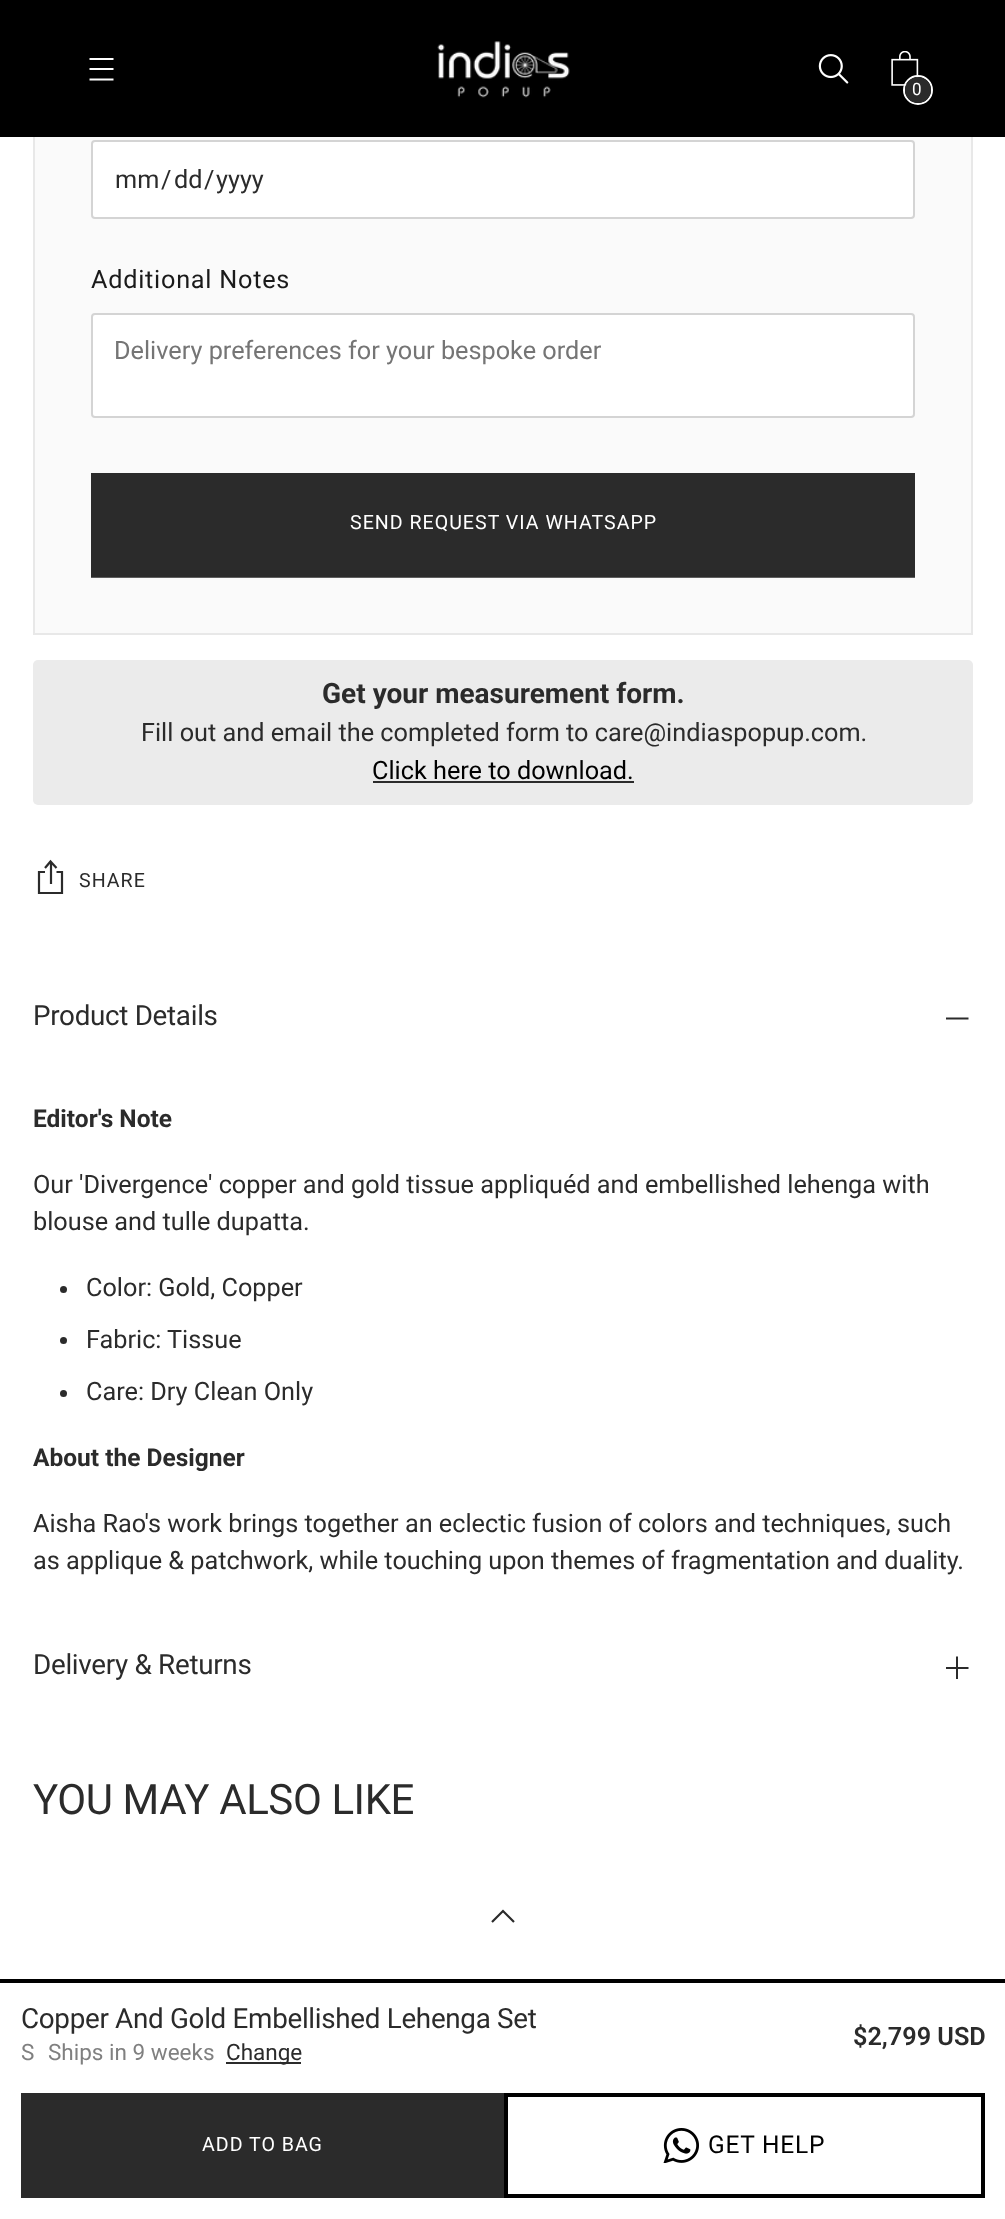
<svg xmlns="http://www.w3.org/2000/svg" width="1005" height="2219">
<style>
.a{font:17px Roboto;fill:#fff}
.b{font:25.25px Roboto;fill:#2b2b2b}
.c{font:25.25px Roboto;letter-spacing:0.75px;fill:#1a1a1a}
.d{font:25.25px Roboto;fill:#757575}
.e{font:19.6px Roboto;letter-spacing:1px;fill:#fff}
.f{font:bold 28px Roboto;fill:#2b2b2b}
.g{font:25.25px Roboto;fill:#000}
.h{font:19.6px Roboto;letter-spacing:1px;fill:#2b2b2b}
.i{font:27.8px Roboto;letter-spacing:-0.3px;fill:#2b2b2b}
.j{font:22.5px Roboto;fill:#808080}
.k{font:22.5px Roboto;fill:#2b2b2b}
.l{font:600 25.25px Roboto;fill:#2b2b2b}
.m{font:24.5px Roboto;letter-spacing:0.75px;fill:#000}
.n{font:bold 24.5px Roboto;fill:#2b2b2b}
.o{font:42px Roboto;letter-spacing:-0.4px;fill:#2b2b2b}
</style>
<defs>
<clipPath id="clip1"><path d="M91 473h824v105H91z"/></clipPath>
<clipPath id="clip2"><path d="M33 859h35v35H33z"/></clipPath>
<clipPath id="clip3"><path d="M21 2093h483v105H21z"/></clipPath>
</defs>
<rect width="100%" height="100%" fill="#fff"/>
<path fill="#fafafa" d="M35 137h936v496H35z"/>
<path fill="none" stroke="#e8e8e8" stroke-width="2" d="M34 -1h938v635H34z"/>
<path fill="#000" d="M0 0h1005v137H0z"/>
<path fill="none" stroke="#fff" stroke-width="1.8" d="M89.5 69h24m-24-10h24m-24 20.5h24"/>
<image href="1.png" x="437" y="41" width="133" height="57"/>
<image href="2.png" x="818" y="54" width="31" height="30"/>
<image href="3.png" x="891" y="51" width="28" height="35"/>
<circle fill="none" stroke="#fff" stroke-width="2" cx="918" cy="90" r="14"/>
<circle fill="#2b2b2b" cx="918" cy="90" r="13"/>
<rect fill="#fff" stroke="#d4d4d4" stroke-width="2" x="92" y="141" width="822" height="77" rx="3"/>
<rect fill="#fff" stroke="#d4d4d4" stroke-width="2" x="92" y="314" width="822" height="103" rx="3"/>
<g clip-path="url(#clip1)">
<path fill="#2b2b2b" d="M-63 472h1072l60 105h-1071z"/>
</g>
<path fill="#5e5e5e" d="M91 577h824v1H91z"/>
<rect fill="#ebebeb" x="33" y="660" width="940" height="145" rx="5"/>
<path fill="#2b2b2b" d="M373 781h261v2H373z"/>
<g clip-path="url(#clip2)">
<path fill="none" stroke="#2b2b2b" stroke-width="2.2" d="M45 872h-6v21h23v-21h-5.5m-5.5 12v-21.5m5.5 5.5l-6-6.5l-5.5 6.5"/>
</g>
<path fill="#000" d="M0 1979h1005v4H0z"/>
<path fill="#2b2b2b" d="M226 2062h75v2H226z"/>
<g clip-path="url(#clip3)">
<path fill="#2b2b2b" d="M-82 2093h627l61 105h-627z"/>
</g>
<path fill="none" stroke="#000" stroke-width="4" d="M506 2095h477v101H506z"/>
<image href="4.png" x="663" y="2128" width="36" height="35"/>
<path fill="none" stroke="#2b2b2b" stroke-width="2" d="M946 1018.5h22.5"/>
<circle fill="#2b2b2b" cx="63.5" cy="1289.5" r="3.5"/>
<circle fill="#2b2b2b" cx="63.5" cy="1340.5" r="3.5"/>
<circle fill="#2b2b2b" cx="63.5" cy="1393.5" r="3.5"/>
<path fill="none" stroke="#2b2b2b" stroke-width="2" d="M946 1668h11m11.5 0h-11.5m0 0v-11.5m0 11.5v11"/>
<path fill="none" stroke="#2b2b2b" stroke-width="2.2" d="M514 1922l-11-11l-11 11"/>
<text class="a" x="912" y="95">0</text>
<text class="b" x="115" y="188">mm</text>
<text class="b" x="161" y="188">/</text>
<text class="b" x="174" y="188">dd</text>
<text class="b" x="204" y="188">/</text>
<text class="b" x="216" y="188">yyyy</text>
<text class="c" x="91" y="288">Additional Notes</text>
<text class="d" x="114" y="359">Delivery preferences for your bespoke order</text>
<text class="e" x="350" y="529">SEND REQUEST VIA WHATSAPP</text>
<text class="f" x="322" y="703">Get your measurement form.</text>
<text class="b" x="141" y="741">Fill out and email the completed form to care@indiaspopup.com.</text>
<text class="g" x="372" y="779">Click here to download.</text>
<text class="h" x="79" y="887">SHARE</text>
<text class="i" x="21" y="2028">Copper And Gold Embellished Lehenga Set</text>
<text class="j" x="21" y="2060">S</text>
<text class="j" x="48" y="2060">Ships in 9 weeks</text>
<text class="k" x="226" y="2060">Change</text>
<text class="l" x="853" y="2045">$2,799 USD</text>
<text class="e" x="202" y="2151">ADD TO BAG</text>
<text class="m" x="708" y="2153">GET HELP</text>
<text class="i" x="33" y="1025">Product Details</text>
<text class="n" x="33" y="1127">Editor's Note</text>
<text class="b" x="33" y="1193">Our 'Divergence' copper and gold tissue appliquéd and embellished lehenga with</text>
<text class="b" x="33" y="1230">blouse and tulle dupatta.</text>
<text class="b" x="86" y="1296">Color: Gold, Copper</text>
<text class="b" x="86" y="1348">Fabric:</text>
<text class="b" x="167" y="1348">Tissue</text>
<text class="b" x="86" y="1400">Care: Dry Clean Only</text>
<text class="n" x="33" y="1466">About the Designer</text>
<text class="b" x="33" y="1532">Aisha Rao's work brings together an eclectic fusion of colors and techniques, such</text>
<text class="b" x="33" y="1569">as applique &amp; patchwork, while touching upon themes of fragmentation and duality.</text>
<text class="i" x="33" y="1674">Delivery &amp; Returns</text>
<text class="o" x="33" y="1814">YOU MAY ALSO LIKE</text>
</svg>
